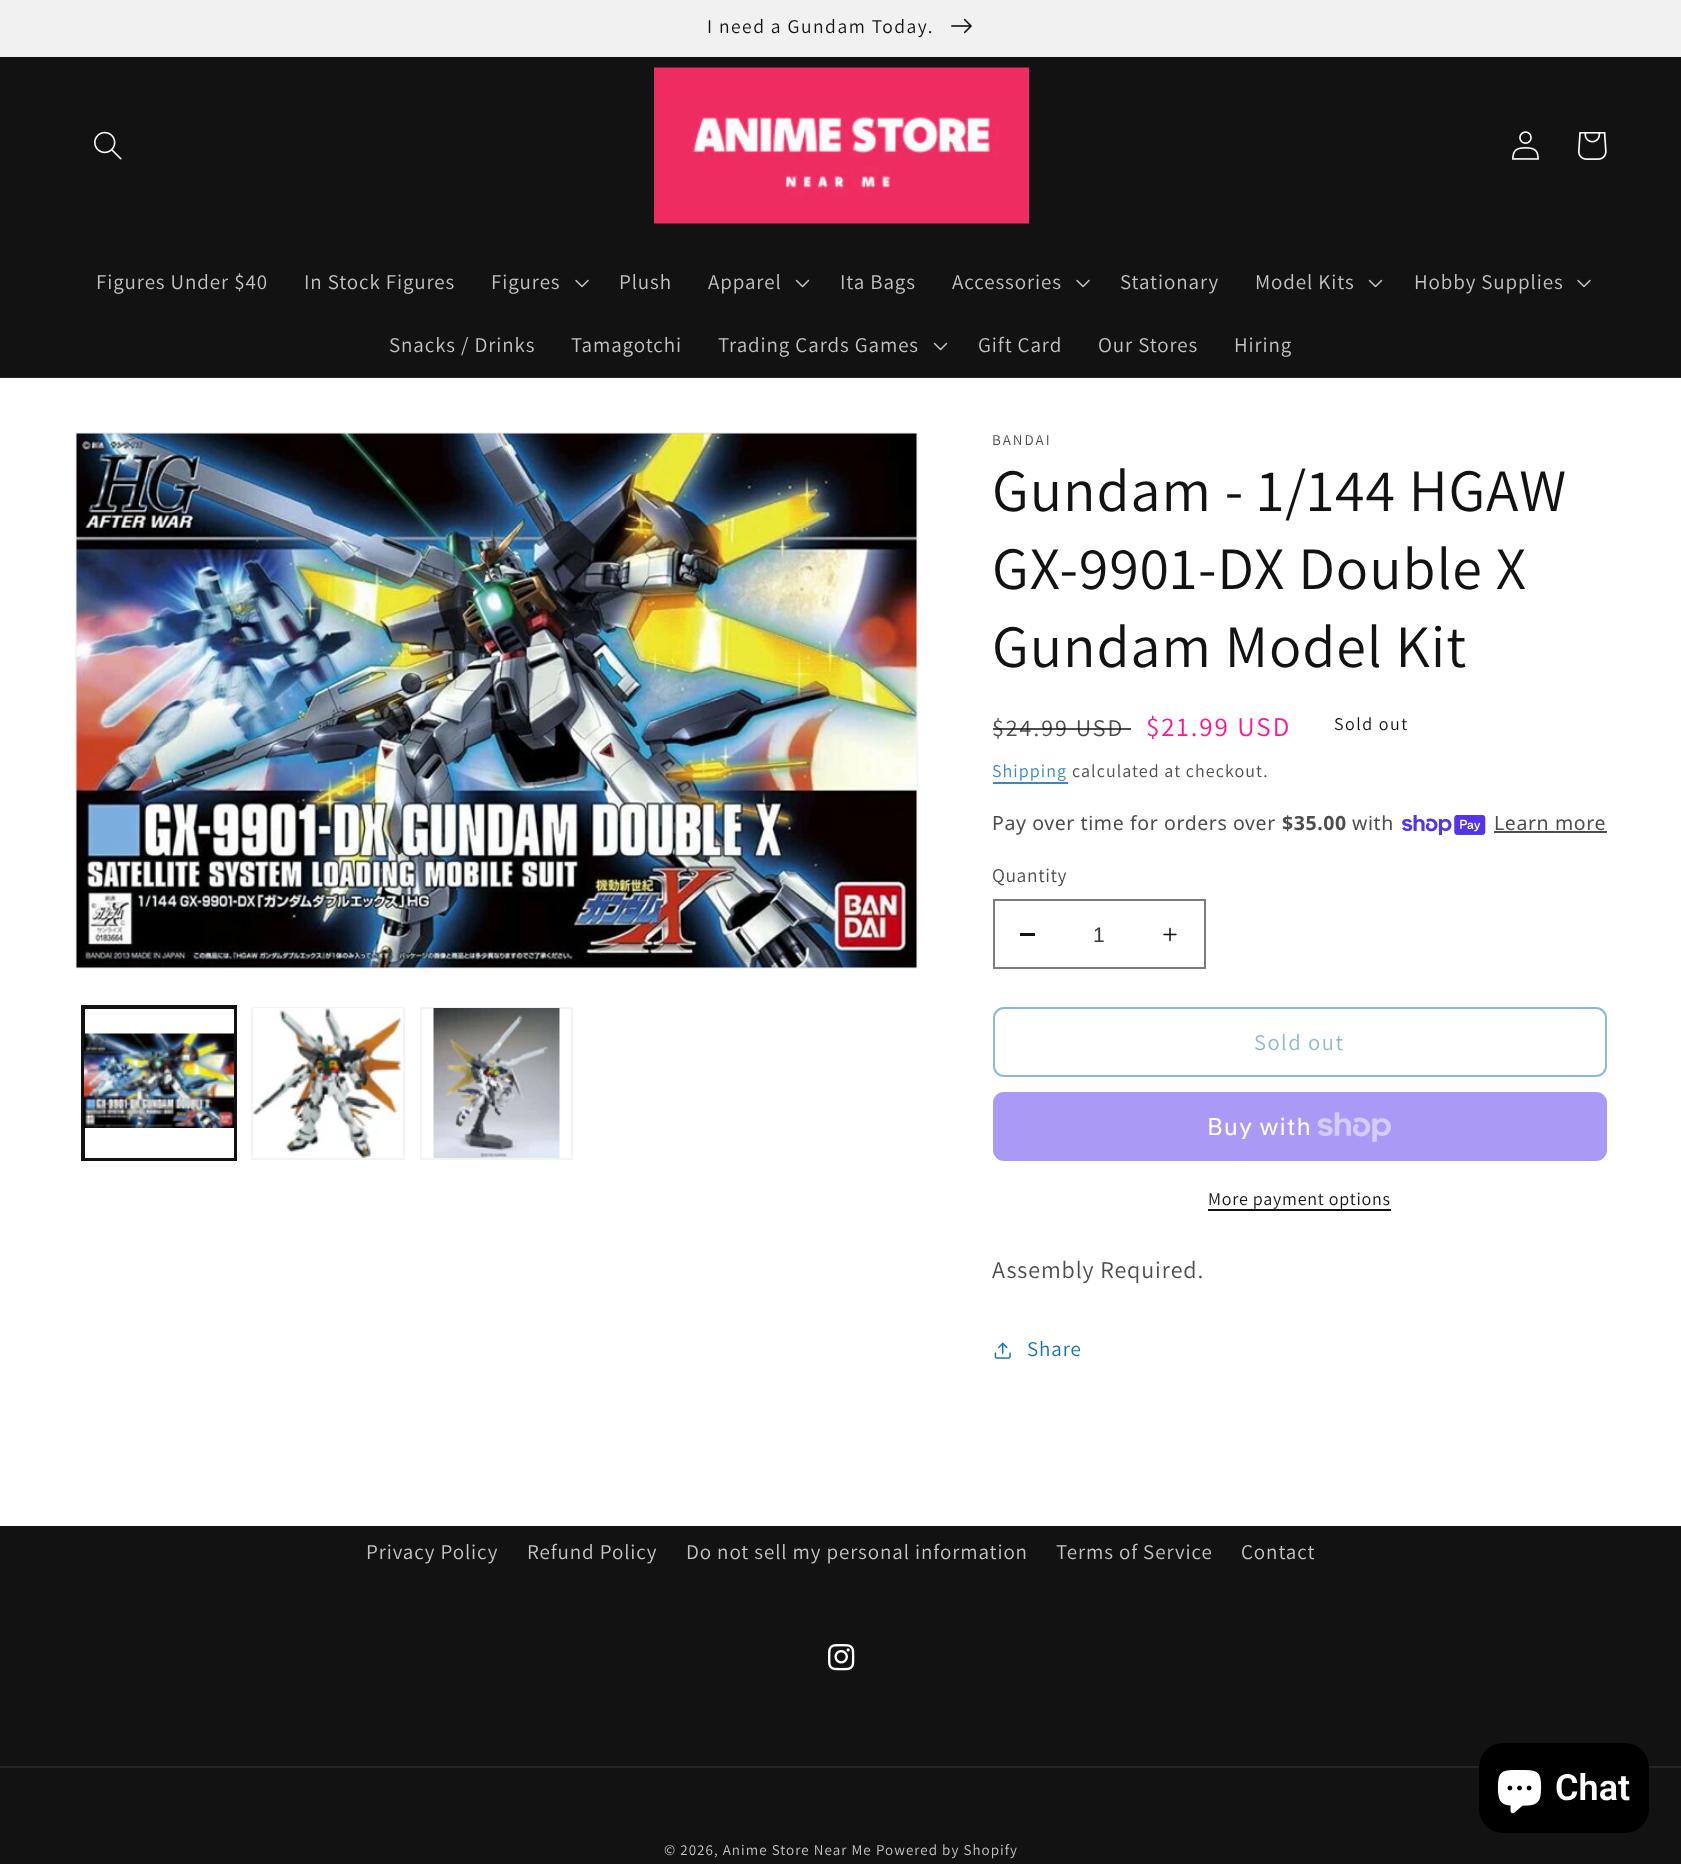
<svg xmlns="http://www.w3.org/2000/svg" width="1681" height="1864">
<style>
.a{font:19.5px Assistant;letter-spacing:1.5px;fill:#121212}
.b{font:21px Assistant;letter-spacing:0.9px;fill:#c4c4c4}
.c{font:15px Assistant;letter-spacing:2px;fill:#4d4d4d}
.d{font:60px Assistant;letter-spacing:0.9px;fill:#121212}
.e{font:24px Assistant;letter-spacing:2px;fill:#4d4d4d}
.f{font:27px Assistant;letter-spacing:2px;fill:#ff1493}
.g{font:18px Assistant;letter-spacing:1.5px;fill:#121212}
.h{font:18px Assistant;letter-spacing:1.05px;fill:#3a88bc}
.i{font:18px Assistant;letter-spacing:1.05px;fill:#4d4d4d}
.j{font:19.5px Noto Sans;letter-spacing:0.6px;fill:#4d4d4d}
.k{font:bold 19.5px Noto Sans;letter-spacing:0.6px;fill:#4d4d4d}
.l{font:19.5px Assistant;letter-spacing:0.6px;fill:#4d4d4d}
.m{font:21px Liberation Sans;fill:#363636}
.n{font:22.5px Assistant;letter-spacing:1.5px;fill:#8bb9d8}
.o{font:24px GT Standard;letter-spacing:0.9px;fill:#fff}
.p{font:18px Assistant;letter-spacing:0.75px;fill:#121212}
.q{font:24px Assistant;letter-spacing:0.9px;fill:#4d4d4d}
.r{font:21px Assistant;letter-spacing:0.9px;fill:#1773b0}
.s{font:15px Assistant;letter-spacing:1.05px;fill:#c4c4c4}
.t{font:600 36px Roboto;fill:#fff}
</style>
<rect width="100%" height="100%" fill="#fff"/>
<path fill="#ececec" d="M0 56h1681v1H0z"/>
<path fill="#f1f1f1" d="M0 0h1681v56H0z"/>
<image href="1.png" x="951" y="18" width="21" height="16"/>
<path fill="#121212" d="M0 57h1681v320H0z"/>
<path fill="#252525" d="M0 377h1681v1H0z"/>
<image href="2.png" x="94" y="131" width="28" height="29"/>
<image href="3.png" x="654" y="67" width="375" height="157"/>
<image href="4.png" x="1512" y="131" width="27" height="29"/>
<image href="5.png" x="1578" y="132" width="29" height="28"/>
<image href="6.png" x="575" y="279" width="14" height="9"/>
<image href="7.png" x="795" y="279" width="15" height="9"/>
<image href="6.png" x="1076" y="279" width="14" height="9"/>
<image href="7.png" x="1368" y="279" width="15" height="9"/>
<image href="6.png" x="1577" y="279" width="14" height="9"/>
<image href="7.png" x="933" y="342" width="15" height="9"/>
<path fill="none" stroke="#f3f3f3" stroke-width="2" d="M76 433h841v535H76z"/>
<image href="8.png" x="76" y="433" width="841" height="535"/>
<path fill="none" stroke="#121212" stroke-width="2" d="M82 1006h154v154H82z"/>
<path fill="none" stroke="#121212" stroke-width="2" d="M84 1008h151v151H84z"/>
<image href="9.png" x="84" y="1033" width="150" height="95"/>
<path fill="none" stroke="#f3f3f3" stroke-width="2" d="M252 1008h152v151H252z"/>
<image href="10.png" x="253" y="1008" width="149" height="150"/>
<path fill="none" stroke="#f3f3f3" stroke-width="2" d="M421 1008h151v151H421z"/>
<image href="11.png" x="433" y="1008" width="127" height="150"/>
<path fill="#3a88bc" d="M993 782h75v2H993z"/>
<image href="12.png" x="1402" y="815" width="84" height="21"/>
<path fill="#4d4d4d" d="M1494 831h113v2H1494z"/>
<path fill="#121212" d="M1020 933h15v3H1020z"/>
<image href="13.png" x="1163" y="927" width="14" height="15"/>
<path fill="none" stroke="#7d7d7d" stroke-width="2" d="M994 900h211v68H994z"/>
<rect fill="none" stroke="#8bb9d8" stroke-width="2" x="994" y="1008" width="612" height="68" rx="10"/>
<rect fill="#aa99f5" x="993" y="1092" width="614" height="69" rx="11"/>
<image href="14.png" x="1317" y="1112" width="74" height="30"/>
<path fill="#121212" d="M1208 1209h183v2H1208z"/>
<image href="15.png" x="994" y="1342" width="17" height="17"/>
<path fill="#121212" d="M0 1526h1681v338H0z"/>
<image href="16.png" x="828" y="1644" width="27" height="27"/>
<path fill="#252525" d="M0 1766h1681v2H0z"/>
<rect fill="#000" x="1479" y="1743" width="170" height="90" rx="24"/>
<image href="17.png" x="1497" y="1770" width="45" height="44"/>
<text class="a" x="707" y="33">I need a Gundam Today.</text>
<text class="b" x="96" y="289">Figures Under $40</text>
<text class="b" x="304" y="289">In Stock Figures</text>
<text class="b" x="491" y="289">Figures</text>
<text class="b" x="619" y="289">Plush</text>
<text class="b" x="708" y="289">Apparel</text>
<text class="b" x="840" y="289">Ita Bags</text>
<text class="b" x="952" y="289">Accessories</text>
<text class="b" x="1120" y="289">Stationary</text>
<text class="b" x="1255" y="289">Model Kits</text>
<text class="b" x="1414" y="289">Hobby Supplies</text>
<text class="b" x="389" y="352">Snacks / Drinks</text>
<text class="b" x="571" y="352">Tamagotchi</text>
<text class="b" x="718" y="352">Trading Cards Games</text>
<text class="b" x="978" y="352">Gift Card</text>
<text class="b" x="1098" y="352">Our Stores</text>
<text class="b" x="1234" y="352">Hiring</text>
<text class="c" x="992" y="445">BANDAI</text>
<text class="d" x="992" y="511">Gundam - 1/144 HGAW</text>
<text class="d" x="992" y="589">GX-9901-DX Double X</text>
<text class="d" x="992" y="667">Gundam Model Kit</text>
<text class="e" x="992" y="736">$24.99 USD</text>
<path fill="#121212bf" d="M993 728h138v2H993z"/>
<text class="f" x="1146" y="736">$21.99 USD</text>
<text class="g" x="1334" y="730">Sold out</text>
<text class="h" x="992" y="777">Shipping</text>
<text class="i" x="1072" y="777">calculated at checkout.</text>
<text class="j" x="992" y="830">Pay over time for orders over</text>
<text class="k" x="1282" y="830">$35.00</text>
<text class="j" x="1352" y="830">with</text>
<text class="j" x="1494" y="830">Learn more</text>
<text class="l" x="992" y="882">Quantity</text>
<text class="m" x="1093" y="942">1</text>
<text class="n" x="1254" y="1050">Sold out</text>
<text class="o" x="1207" y="1135">Buy with</text>
<text class="p" x="1208" y="1205">More payment options</text>
<text class="q" x="992" y="1278">Assembly Required.</text>
<text class="r" x="1027" y="1356">Share</text>
<text class="b" x="366" y="1559">Privacy Policy</text>
<text class="b" x="527" y="1559">Refund Policy</text>
<text class="b" x="686" y="1559">Do not sell my personal information</text>
<text class="b" x="1056" y="1559">Terms of Service</text>
<text class="b" x="1241" y="1559">Contact</text>
<text class="s" x="664" y="1855">© 2026, Anime Store Near Me</text>
<text class="s" x="876" y="1855">Powered by Shopify</text>
<text class="t" x="1555" y="1800">Chat</text>
</svg>
